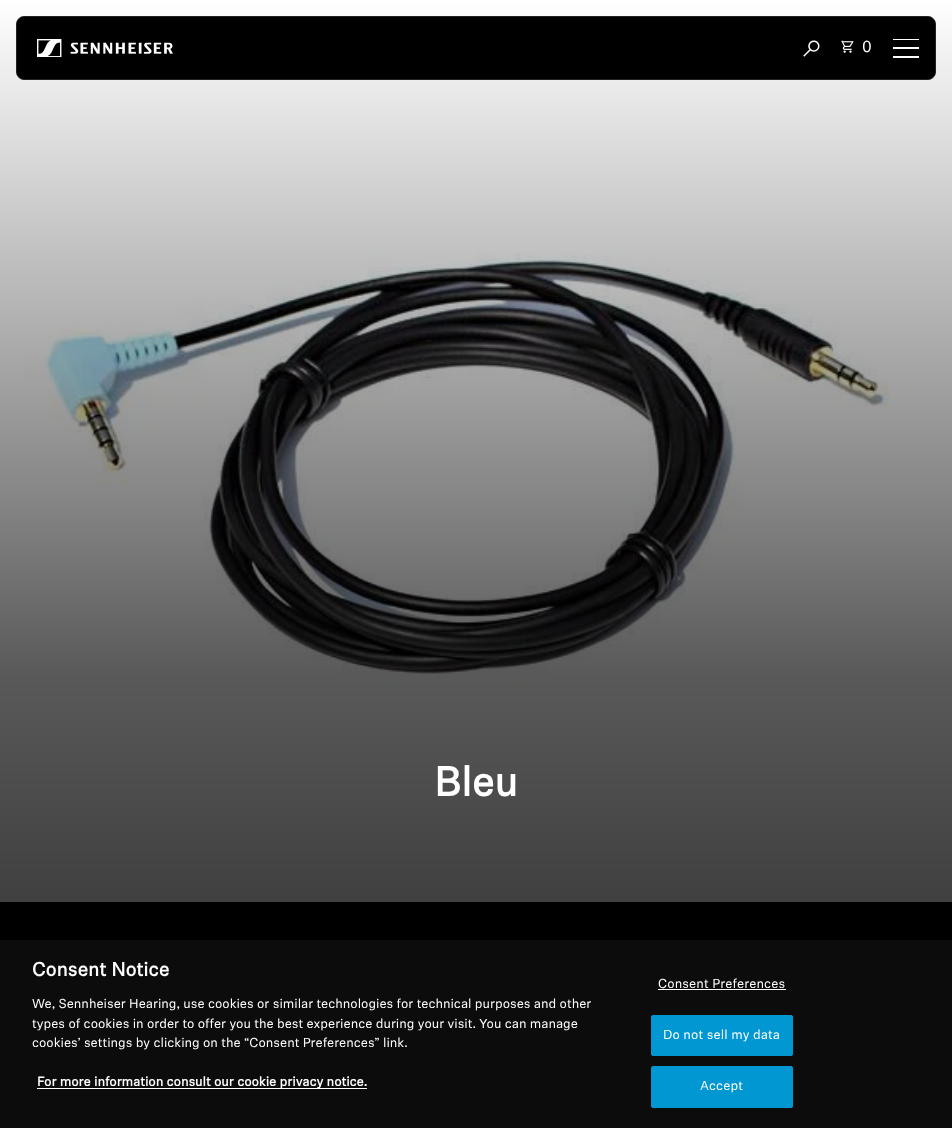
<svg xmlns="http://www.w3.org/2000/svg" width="952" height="1128">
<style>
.a{font:16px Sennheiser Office;fill:#fff}
.b{font:bold 41px Sennheiser Office;fill:#fff}
.c{font:bold 19.25px Sennheiser Office;fill:#fff}
.d{font:13px Sennheiser Office;fill:#fff}
.e{font:bold 13px Sennheiser Office;fill:#fff}
.f{font:13px Sennheiser Office;letter-spacing:0.1px;fill:#fff}
</style>
<rect width="100%" height="100%" fill="#000"/>
<image href="4.png" x="0" y="0" width="952" height="902"/>
<rect fill="#000" stroke="#222" x="16.5" y="16.5" width="919" height="63" rx="7.5"/>
<image href="1.png" x="37" y="39" width="136" height="18"/>
<image href="2.png" x="803" y="40" width="17" height="17"/>
<image href="3.png" x="840" y="40" width="14" height="13"/>
<path fill="#fff" d="M893 39h26v1H893z"/>
<path fill="#fff" d="M893 47h26v2H893z"/>
<path fill="#fff" d="M893 56h26v2H893z"/>
<path fill="#0d0c0c" d="M0 940h952v188H0z"/>
<path fill="#fff" d="M37 1088h330v1H37z"/>
<path fill="#fff" d="M658 989h128v1H658z"/>
<rect fill="#0097d2" stroke="#0097d2" x="651.5" y="1015.5" width="141" height="40" rx="1.5"/>
<rect fill="#0097d2" stroke="#0097d2" x="651.5" y="1066.5" width="141" height="41" rx="1.5"/>
<text class="a" x="862" y="52">0</text>
<text class="b" x="434" y="796">Bleu</text>
<text class="c" x="32" y="976">Consent Notice</text>
<text class="d" x="32" y="1008">We, Sennheiser Hearing, use cookies or similar technologies for technical purposes and other</text>
<text class="d" x="32" y="1028">types of cookies in order to offer you the best experience during your visit. You can manage</text>
<text class="d" x="32" y="1047">cookies’ settings by clicking on the “Consent Preferences” link.</text>
<text class="e" x="37" y="1086">For more information consult our cookie privacy notice.</text>
<text class="f" x="658" y="988">Consent Preferences</text>
<text class="f" x="663" y="1039">Do not sell my data</text>
<text class="f" x="700" y="1090">Accept</text>
</svg>
